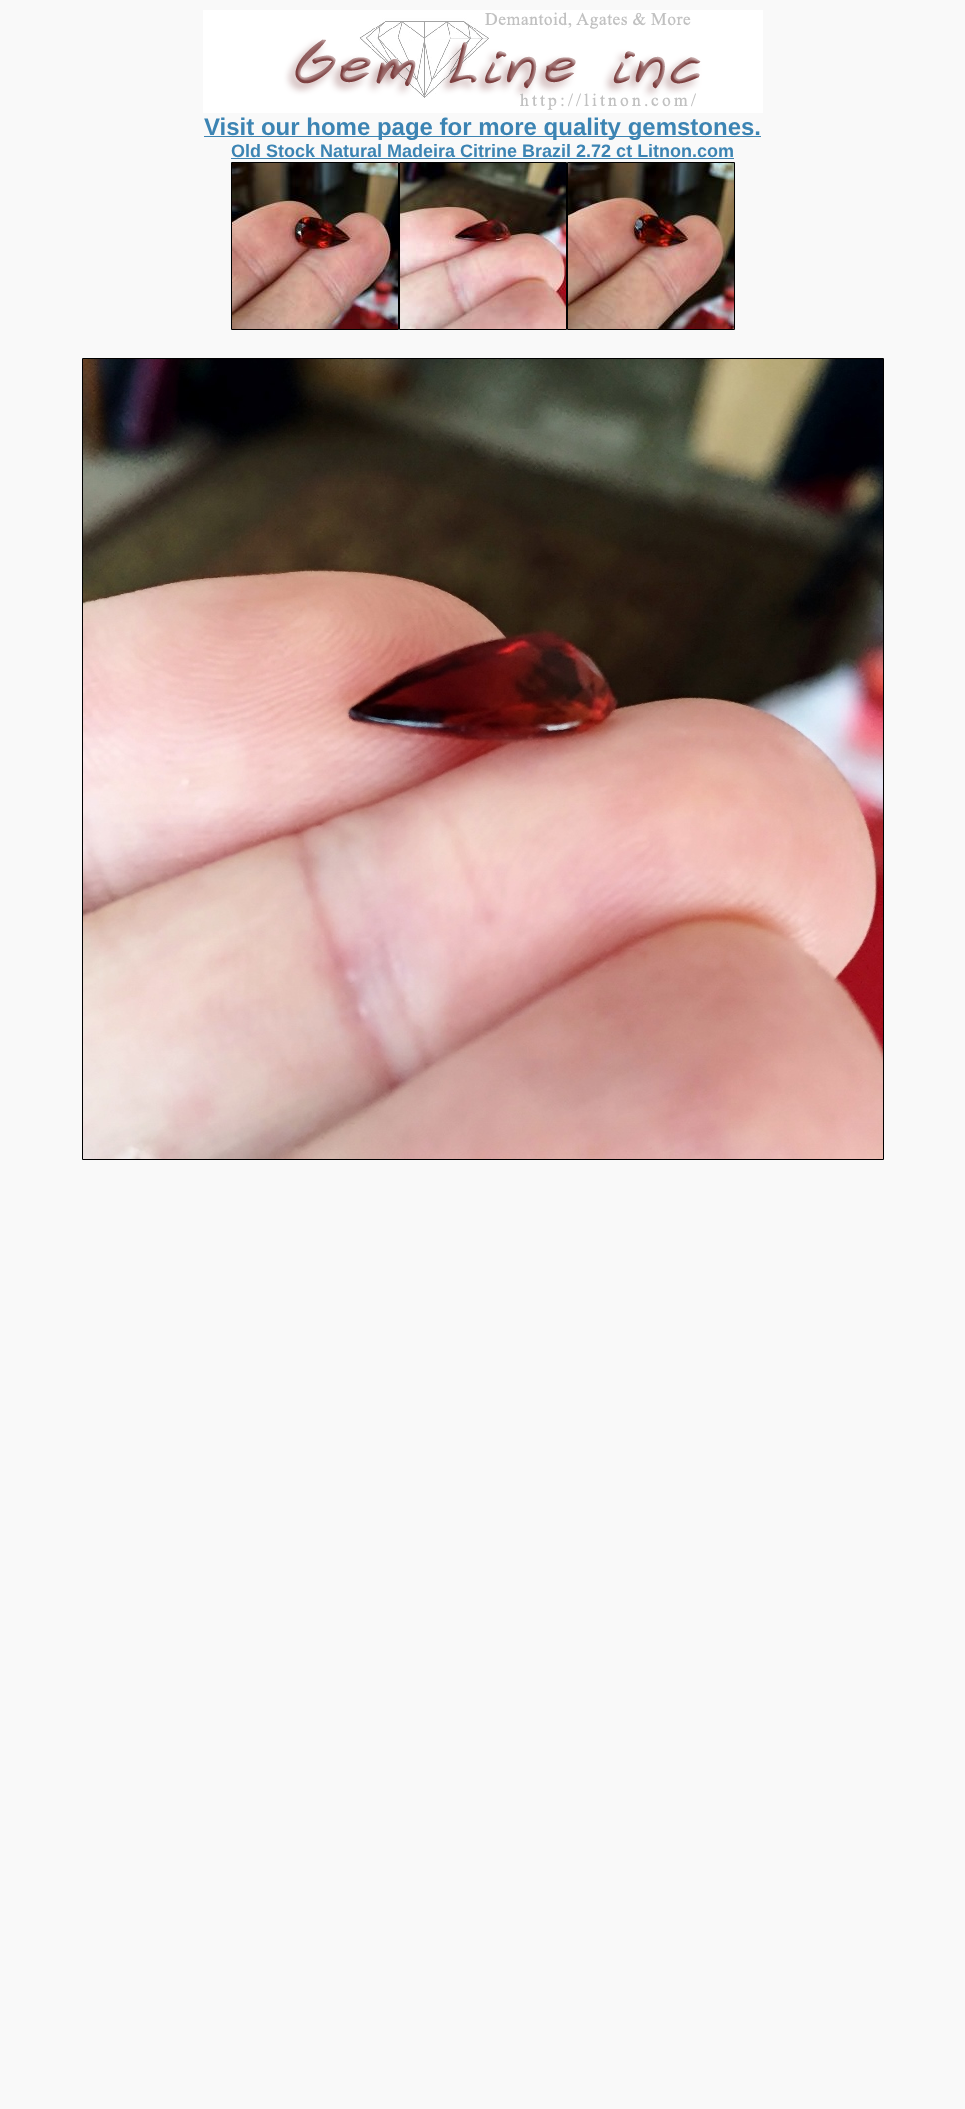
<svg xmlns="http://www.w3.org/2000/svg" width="965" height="2109">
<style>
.a{font:bold 24px Liberation Sans;fill:#3c84b3}
.b{font:bold 18px Liberation Sans;fill:#3c84b3}
</style>
<rect width="100%" height="100%" fill="#f9f9f9"/>
<image href="1.png" x="203" y="10" width="560" height="103"/>
<path fill="#3c84b3" d="M204 136h557v1H204z"/>
<path fill="#3c84b3" d="M231 158h503v1H231z"/>
<path fill="none" stroke="#000" d="M231.5 162.5h167v167H231.5z"/>
<image href="2.png" x="232" y="163" width="166" height="166"/>
<path fill="none" stroke="#000" d="M399.5 162.5h167v167H399.5z"/>
<image href="3.png" x="400" y="163" width="166" height="166"/>
<path fill="none" stroke="#000" d="M567.5 162.5h167v167H567.5z"/>
<image href="4.png" x="568" y="163" width="166" height="166"/>
<path fill="none" stroke="#000" d="M82.5 358.5h801v801H82.5z"/>
<image href="5.png" x="83" y="359" width="800" height="800"/>
<text class="a" x="204" y="135">Visit our home page for more quality gemstones.</text>
<text class="b" x="231" y="157">Old Stock Natural Madeira Citrine Brazil 2.72 ct Litnon.com</text>
</svg>
